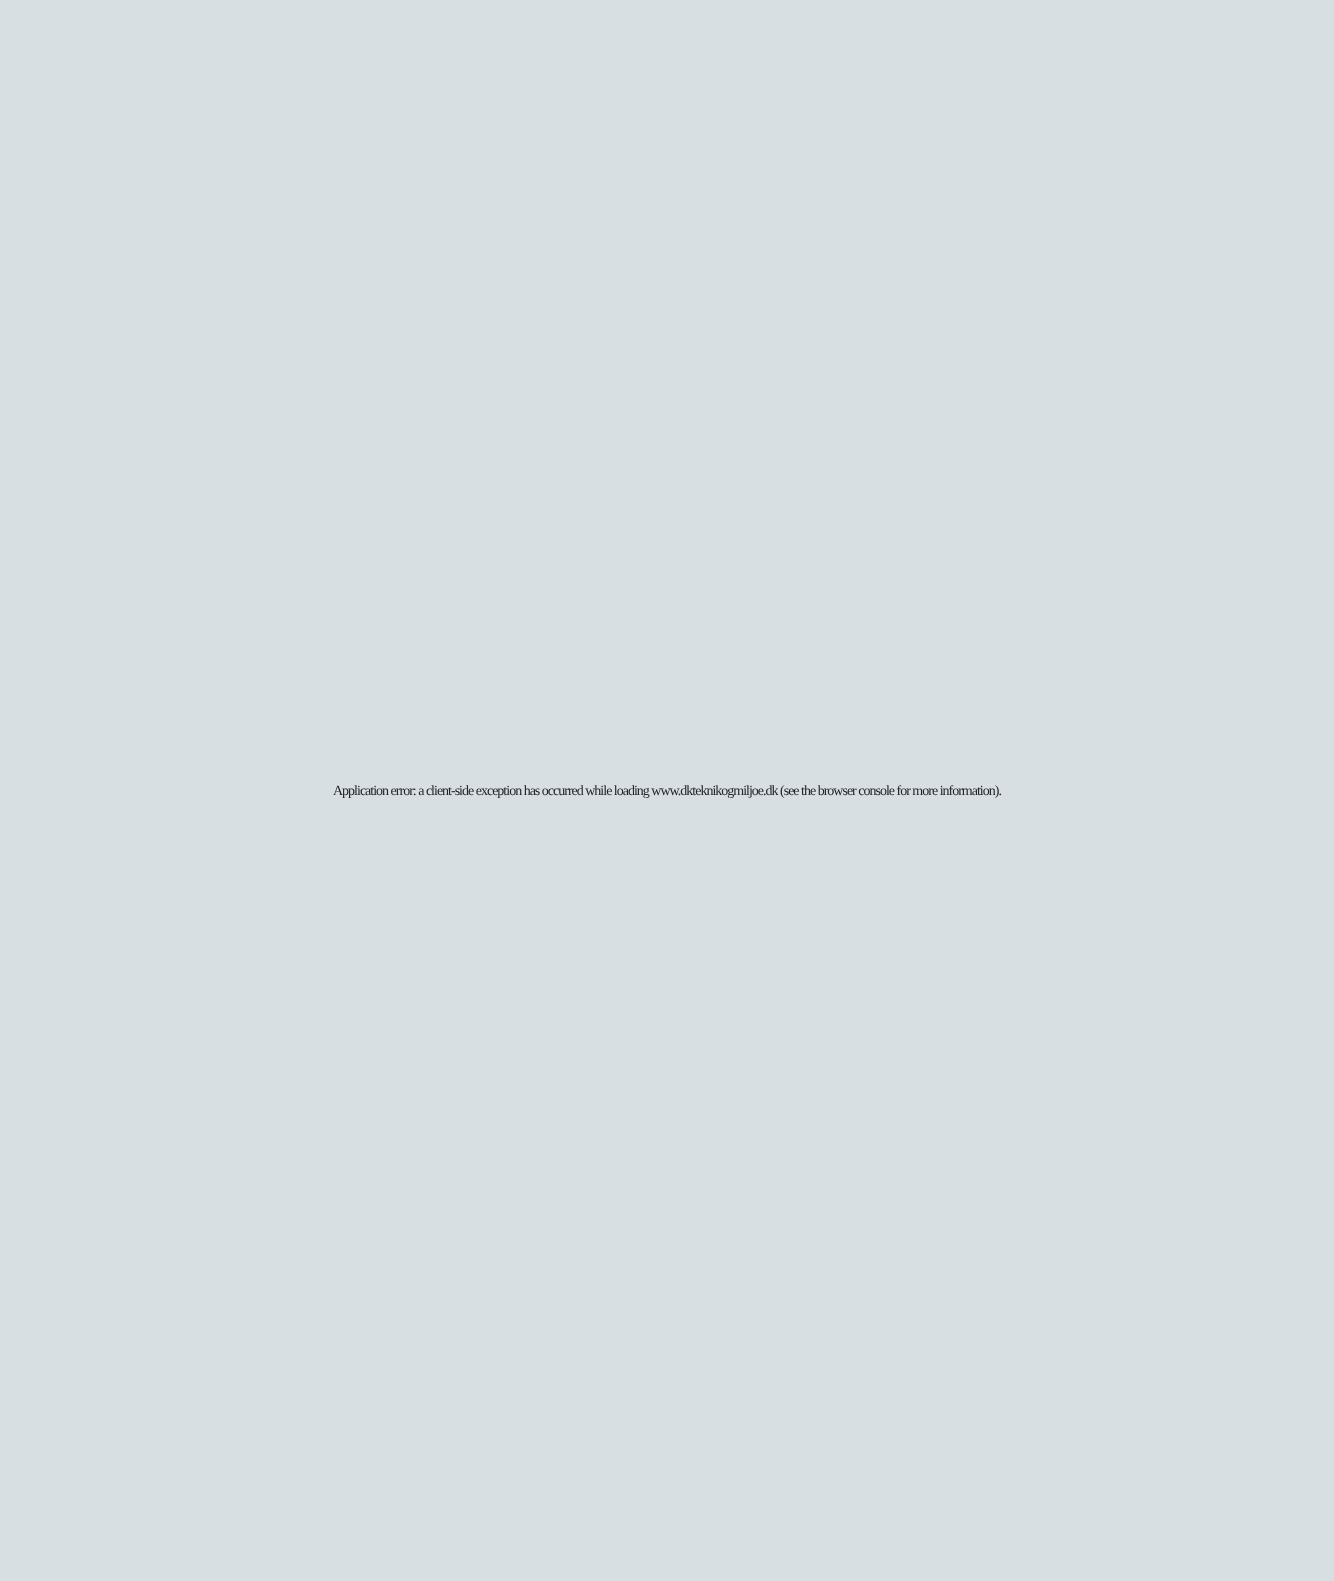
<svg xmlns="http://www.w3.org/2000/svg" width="1334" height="1581">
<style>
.a{font:14px Liberation Serif;letter-spacing:-1px;fill:#212529}
</style>
<rect width="100%" height="100%" fill="#d7dfe2"/>
<text class="a" x="333" y="795">Application error: a client-side exception has occurred while loading www.dkteknikogmiljoe.dk (see the browser console for more information).</text>
</svg>
